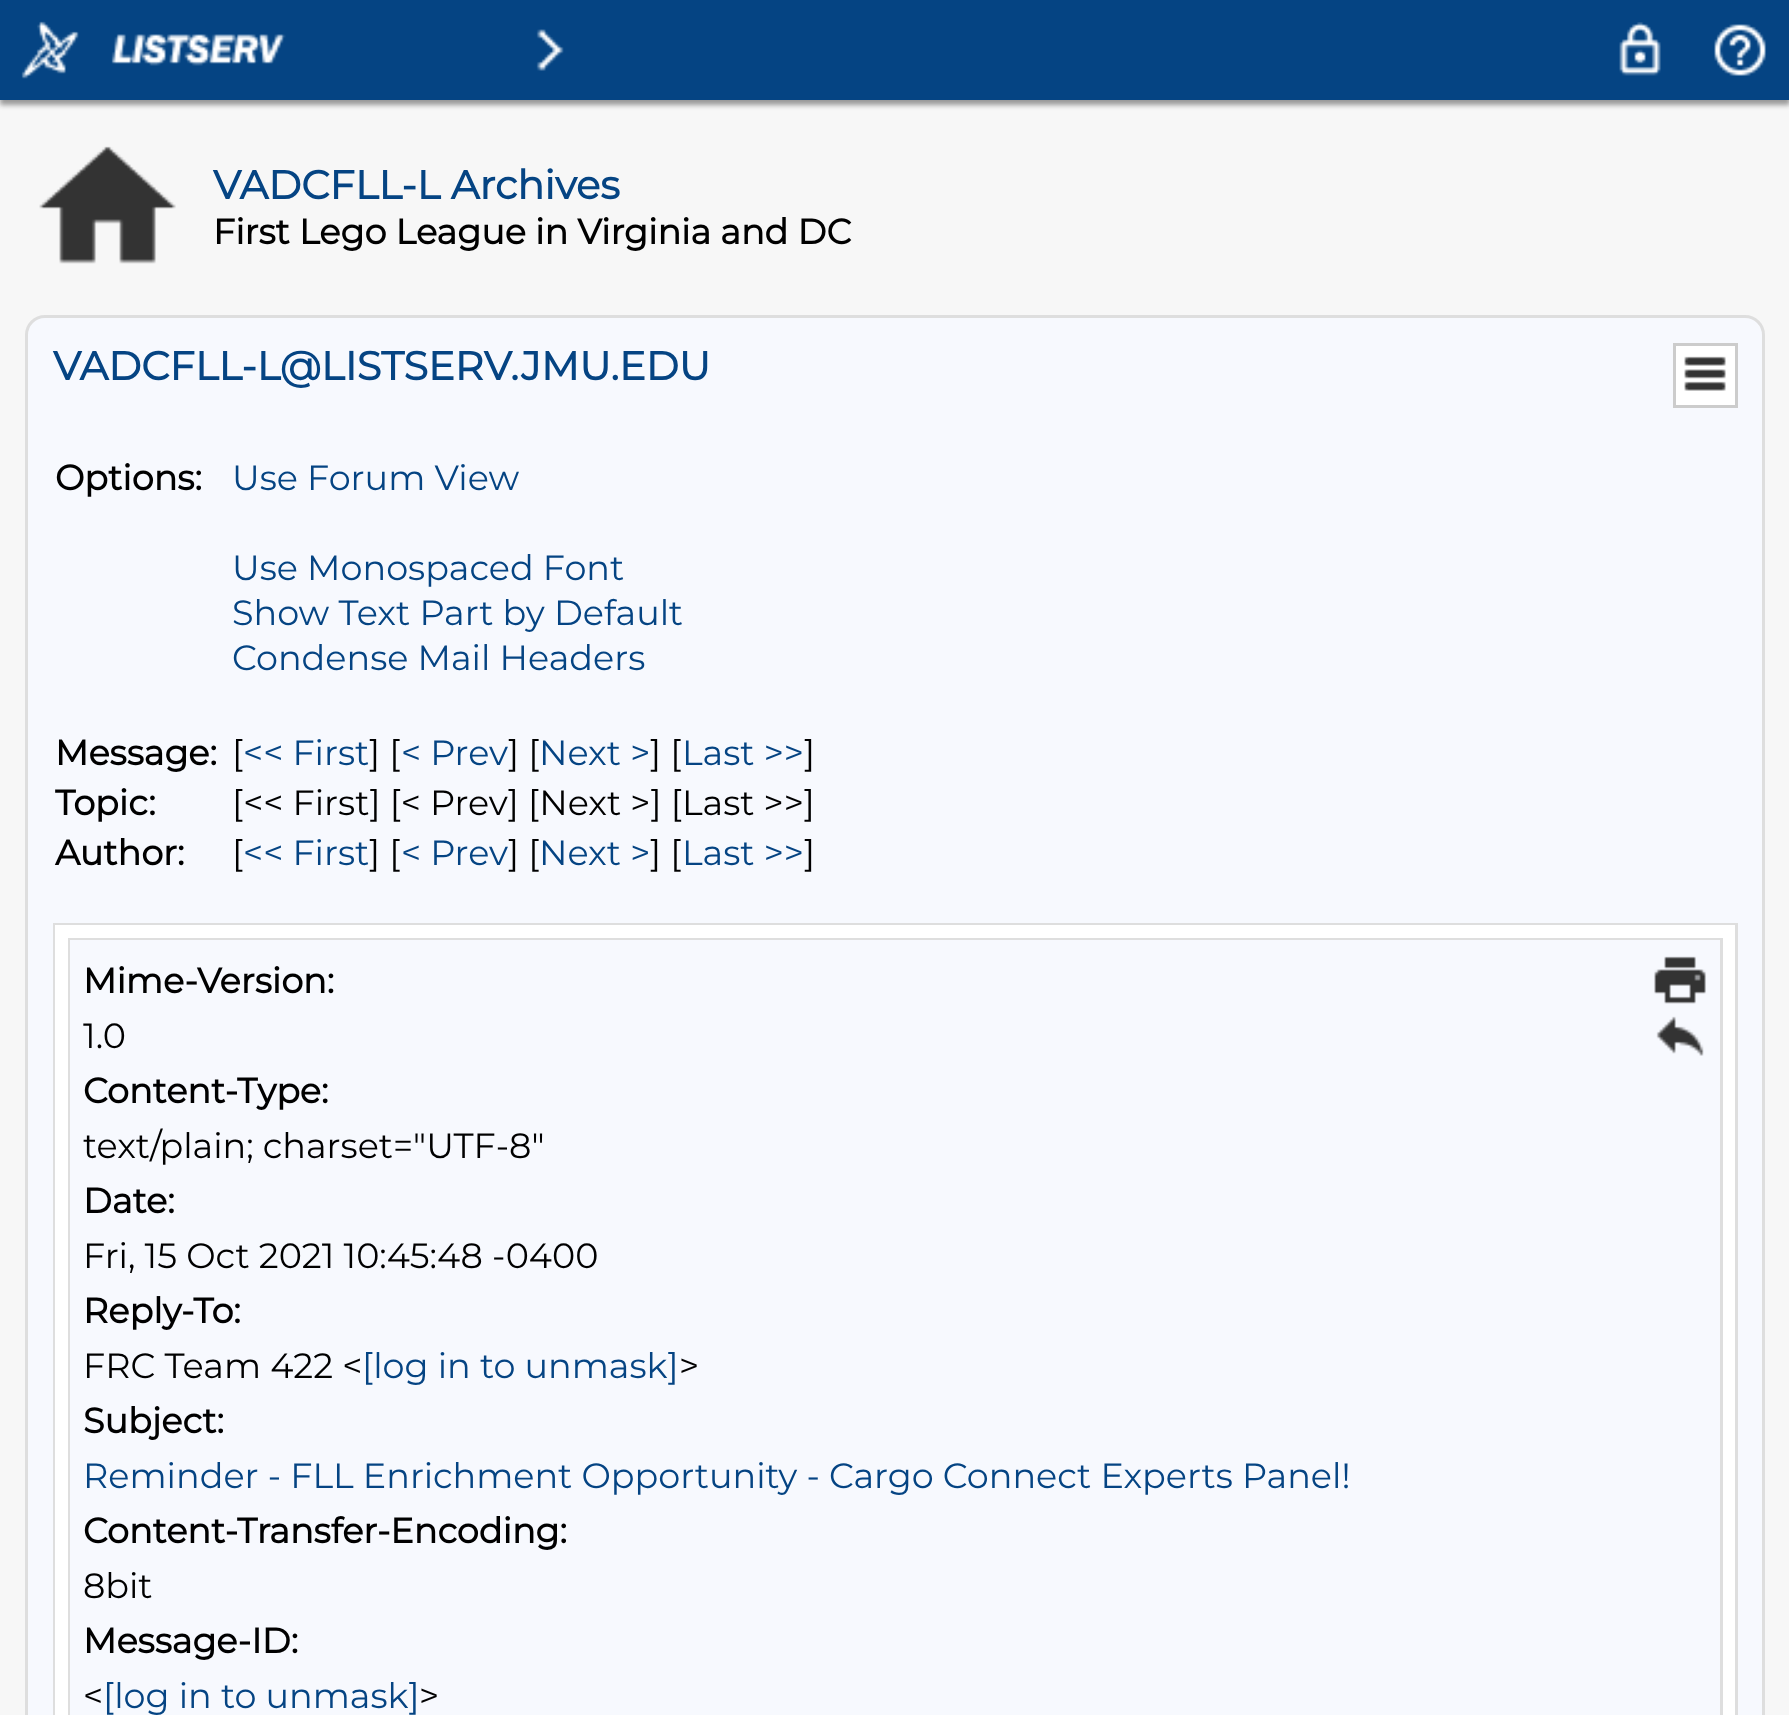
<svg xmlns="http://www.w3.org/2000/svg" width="1789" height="1715">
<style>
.a{font:bold 40px Montserrat;fill:#054483}
.b{font:bold 35px Montserrat;fill:#000}
.c{font:100 35px Montserrat;fill:#054483}
.d{font:100 35px Montserrat;fill:#000}
</style>
<rect width="100%" height="100%" fill="#f7f7f7"/>
<path fill="#999" filter="blur(2.5px)" d="M0 5h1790v100H0z"/>
<path fill="#054483" d="M0 0h1789v100H0z"/>
<image href="1.png" x="21" y="21" width="58" height="58"/>
<image href="2.png" x="111" y="34" width="175" height="32"/>
<image href="3.png" x="536" y="29" width="28" height="42"/>
<image href="4.png" x="1619" y="22" width="42" height="54"/>
<image href="5.png" x="1714" y="24" width="52" height="52"/>
<image href="6.png" x="39" y="146" width="137" height="118"/>
<rect fill="#f7f9fe" stroke="#dedede" stroke-width="3" x="26.5" y="316.5" width="1737" height="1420" rx="18.5"/>
<path fill="#fff" stroke="#ccc" stroke-width="3" d="M1674.5 344.5h62v62H1674.5z"/>
<image href="7.png" x="1684" y="356" width="42" height="35"/>
<path fill="none" stroke="#dedede" stroke-width="3" d="M54.5 924.5h1682v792H54.5z"/>
<path fill="#fff" d="M55 925h1680v790H55z"/>
<path fill="none" stroke="#dedede" stroke-width="3" d="M69.5 939.5h1652v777H69.5z"/>
<path fill="#f7f9fe" d="M70 940h1650v775H70z"/>
<image href="8.png" x="1654" y="956" width="52" height="48"/>
<image href="9.png" x="1656" y="1016" width="48" height="40"/>
<text class="a" x="213" y="199">VADCFLL-L Archives</text>
<text class="b" x="213" y="244">First Lego League in Virginia and DC</text>
<text class="a" x="53" y="380">VADCFLL-L@LISTSERV.JMU.EDU</text>
<text class="b" x="55" y="490">Options:</text>
<text class="c" x="232" y="490">Use Forum View</text>
<text class="c" x="232" y="580">Use Monospaced Font</text>
<text class="c" x="232" y="625">Show Text Part by Default</text>
<text class="c" x="232" y="670">Condense Mail Headers</text>
<text class="b" x="55" y="765">Message:</text>
<text class="d" x="232" y="765">[</text>
<text class="c" x="243" y="765">&lt;&lt; First</text>
<text class="d" x="369" y="765">] [</text>
<text class="c" x="401" y="765">&lt; Prev</text>
<text class="d" x="508" y="765">] [</text>
<text class="c" x="539" y="765">Next &gt;</text>
<text class="d" x="650" y="765">] [</text>
<text class="c" x="682" y="765">Last &gt;&gt;</text>
<text class="d" x="804" y="765">]</text>
<text class="b" x="55" y="815">Topic:</text>
<text class="d" x="232" y="815">[&lt;&lt; First] [&lt; Prev] [Next &gt;] [Last &gt;&gt;]</text>
<text class="b" x="55" y="865">Author:</text>
<text class="d" x="232" y="865">[</text>
<text class="c" x="243" y="865">&lt;&lt; First</text>
<text class="d" x="369" y="865">] [</text>
<text class="c" x="401" y="865">&lt; Prev</text>
<text class="d" x="508" y="865">] [</text>
<text class="c" x="539" y="865">Next &gt;</text>
<text class="d" x="650" y="865">] [</text>
<text class="c" x="682" y="865">Last &gt;&gt;</text>
<text class="d" x="804" y="865">]</text>
<text class="b" x="83" y="993">Mime-Version:</text>
<text class="d" x="83" y="1048">1.0</text>
<text class="b" x="83" y="1103">Content-Type:</text>
<text class="d" x="83" y="1158">text/plain; charset="UTF-8"</text>
<text class="b" x="83" y="1213">Date:</text>
<text class="d" x="83" y="1268">Fri, 15 Oct 2021 10:45:48 -0400</text>
<text class="b" x="83" y="1323">Reply-To:</text>
<text class="d" x="83" y="1378">FRC Team 422 &lt;</text>
<text class="c" x="362" y="1378">[log in to unmask]</text>
<text class="d" x="679" y="1378">&gt;</text>
<text class="b" x="83" y="1433">Subject:</text>
<text class="c" x="83" y="1488">Reminder - FLL Enrichment Opportunity - Cargo Connect Experts Panel!</text>
<text class="b" x="83" y="1543">Content-Transfer-Encoding:</text>
<text class="d" x="83" y="1598">8bit</text>
<text class="b" x="83" y="1653">Message-ID:</text>
<text class="d" x="83" y="1708">&lt;</text>
<text class="c" x="103" y="1708">[log in to unmask]</text>
<text class="d" x="419" y="1708">&gt;</text>
</svg>
